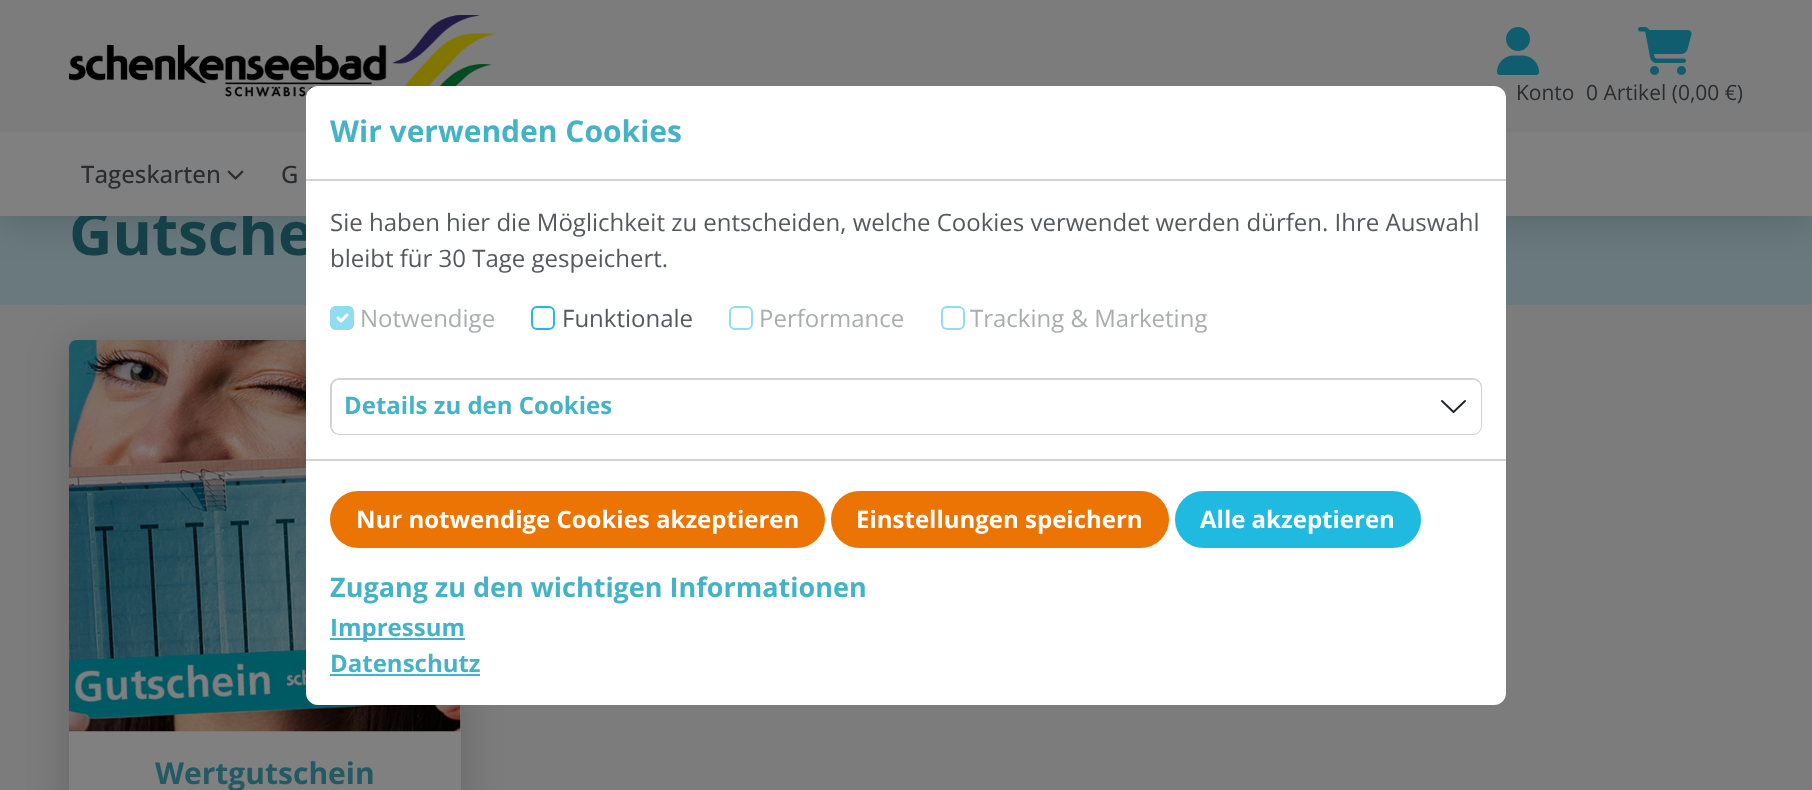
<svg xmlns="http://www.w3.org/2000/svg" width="1812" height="790">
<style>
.a{font:21px Open Sans;fill:#2a2d30}
.b{font:bold 60px Open Sans;fill:#164048}
.c{font:500 24px Open Sans;fill:#2a2d30}
.d{font:bold 30px Open Sans;fill:#235963}
.e{font:bold 30px Open Sans;fill:#46b2c6}
.f{font:24px Open Sans;fill:#54595f}
.g{font:24px Open Sans;fill:#aaacaf}
.h{font:bold 24px Open Sans;fill:#46b2c6}
.i{font:bold 24px Open Sans;fill:#fff}
.j{font:bold 27px Open Sans;fill:#46b2c6}
</style>
<rect width="100%" height="100%" fill="#7c7c7c"/>
<path fill="#69797d" d="M0 216h1812v89H0z"/>
<path fill="#0000002e" filter="blur(21px)" d="M0 3h1812v216H0z"/>
<path fill="#7c7c7c" d="M0 0h1812v132H0z"/>
<image href="1.png" x="69" y="15" width="427" height="82"/>
<image href="2.png" x="1497" y="27" width="42" height="48"/>
<image href="3.png" x="1638" y="27" width="54" height="48"/>
<rect fill="#0000002e" filter="blur(21px)" x="69" y="344" width="392" height="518" rx="9"/>
<rect fill="#808080" x="69" y="341" width="392" height="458" rx="9"/>
<image href="5.png" x="69" y="340" width="392" height="392"/>
<text class="a" x="1516" y="100">Konto</text>
<text class="a" x="1586" y="100">0 Artikel (0,00 €)</text>
<text class="b" x="69" y="255">Gutsche</text>
<path fill="#808080" d="M0 132h1812v84H0z"/>
<text class="c" x="281" y="183">G</text>
<image href="4.png" x="227" y="170" width="17" height="10"/>
<text class="c" x="81" y="183">Tageskarten</text>
<text class="d" x="155" y="784">Wertgutschein</text>
<rect fill="#fff" x="306" y="86" width="1200" height="619" rx="12"/>
<path fill="#d2d2d2" d="M306 179h1200v2H306z"/>
<text class="e" x="330" y="142">Wir verwenden Cookies</text>
<text class="f" x="330" y="231">Sie haben hier die Möglichkeit zu entscheiden, welche Cookies verwendet werden dürfen. Ihre Auswahl</text>
<text class="f" x="330" y="267">bleibt für 30 Tage gespeichert.</text>
<rect fill="#90ddf0" x="330" y="306" width="24" height="24" rx="6"/>
<path fill="none" stroke="#fff" stroke-width="3.1" stroke-linecap="round" stroke-linejoin="round" d="M338 318l3 3l6-6"/>
<rect fill="none" stroke="#90ddf0" stroke-width="2" x="331" y="307" width="22" height="22" rx="5"/>
<text class="g" x="360" y="327">Notwendige</text>
<rect fill="none" stroke="#20bae1" stroke-width="2" x="532" y="307" width="22" height="22" rx="5"/>
<text class="f" x="562" y="327">Funktionale</text>
<rect fill="none" stroke="#90ddf0" stroke-width="2" x="730" y="307" width="22" height="22" rx="5"/>
<text class="g" x="759" y="327">Performance</text>
<rect fill="none" stroke="#90ddf0" stroke-width="2" x="942" y="307" width="22" height="22" rx="5"/>
<text class="g" x="970" y="327">Tracking &amp; Marketing</text>
<rect fill="none" stroke="#d2d2d2" stroke-width="2" x="331" y="379" width="1150" height="55" rx="8"/>
<rect fill="#fff" x="332" y="380" width="1149" height="54" rx="8"/>
<text class="h" x="344" y="414">Details zu den Cookies</text>
<path fill="none" stroke="#212529" stroke-width="1.9" stroke-linecap="round" stroke-linejoin="round" d="M1442 401l11.5 11l11.5-11"/>
<path fill="#d2d2d2" d="M306 459h1200v2H306z"/>
<rect fill="#ec7404" stroke="#ec7404" stroke-width="2" x="331" y="492" width="493" height="55" rx="27.5"/>
<text class="i" x="356" y="528">Nur notwendige Cookies akzeptieren</text>
<rect fill="#ec7404" stroke="#ec7404" stroke-width="2" x="832" y="492" width="336" height="55" rx="27.5"/>
<text class="i" x="856" y="528">Einstellungen speichern</text>
<rect fill="#20bae1" stroke="#20bae1" stroke-width="2" x="1176" y="492" width="244" height="55" rx="27.5"/>
<text class="i" x="1200" y="528">Alle akzeptieren</text>
<text class="j" x="330" y="597">Zugang zu den wichtigen Informationen</text>
<path fill="#46b2c6" d="M330 638h135v2H330z"/>
<text class="h" x="330" y="636">Impressum</text>
<text class="h" x="330" y="672">Datenschutz</text>
<path fill="#46b2c6" d="M330 674h150v2H330z"/>
</svg>
